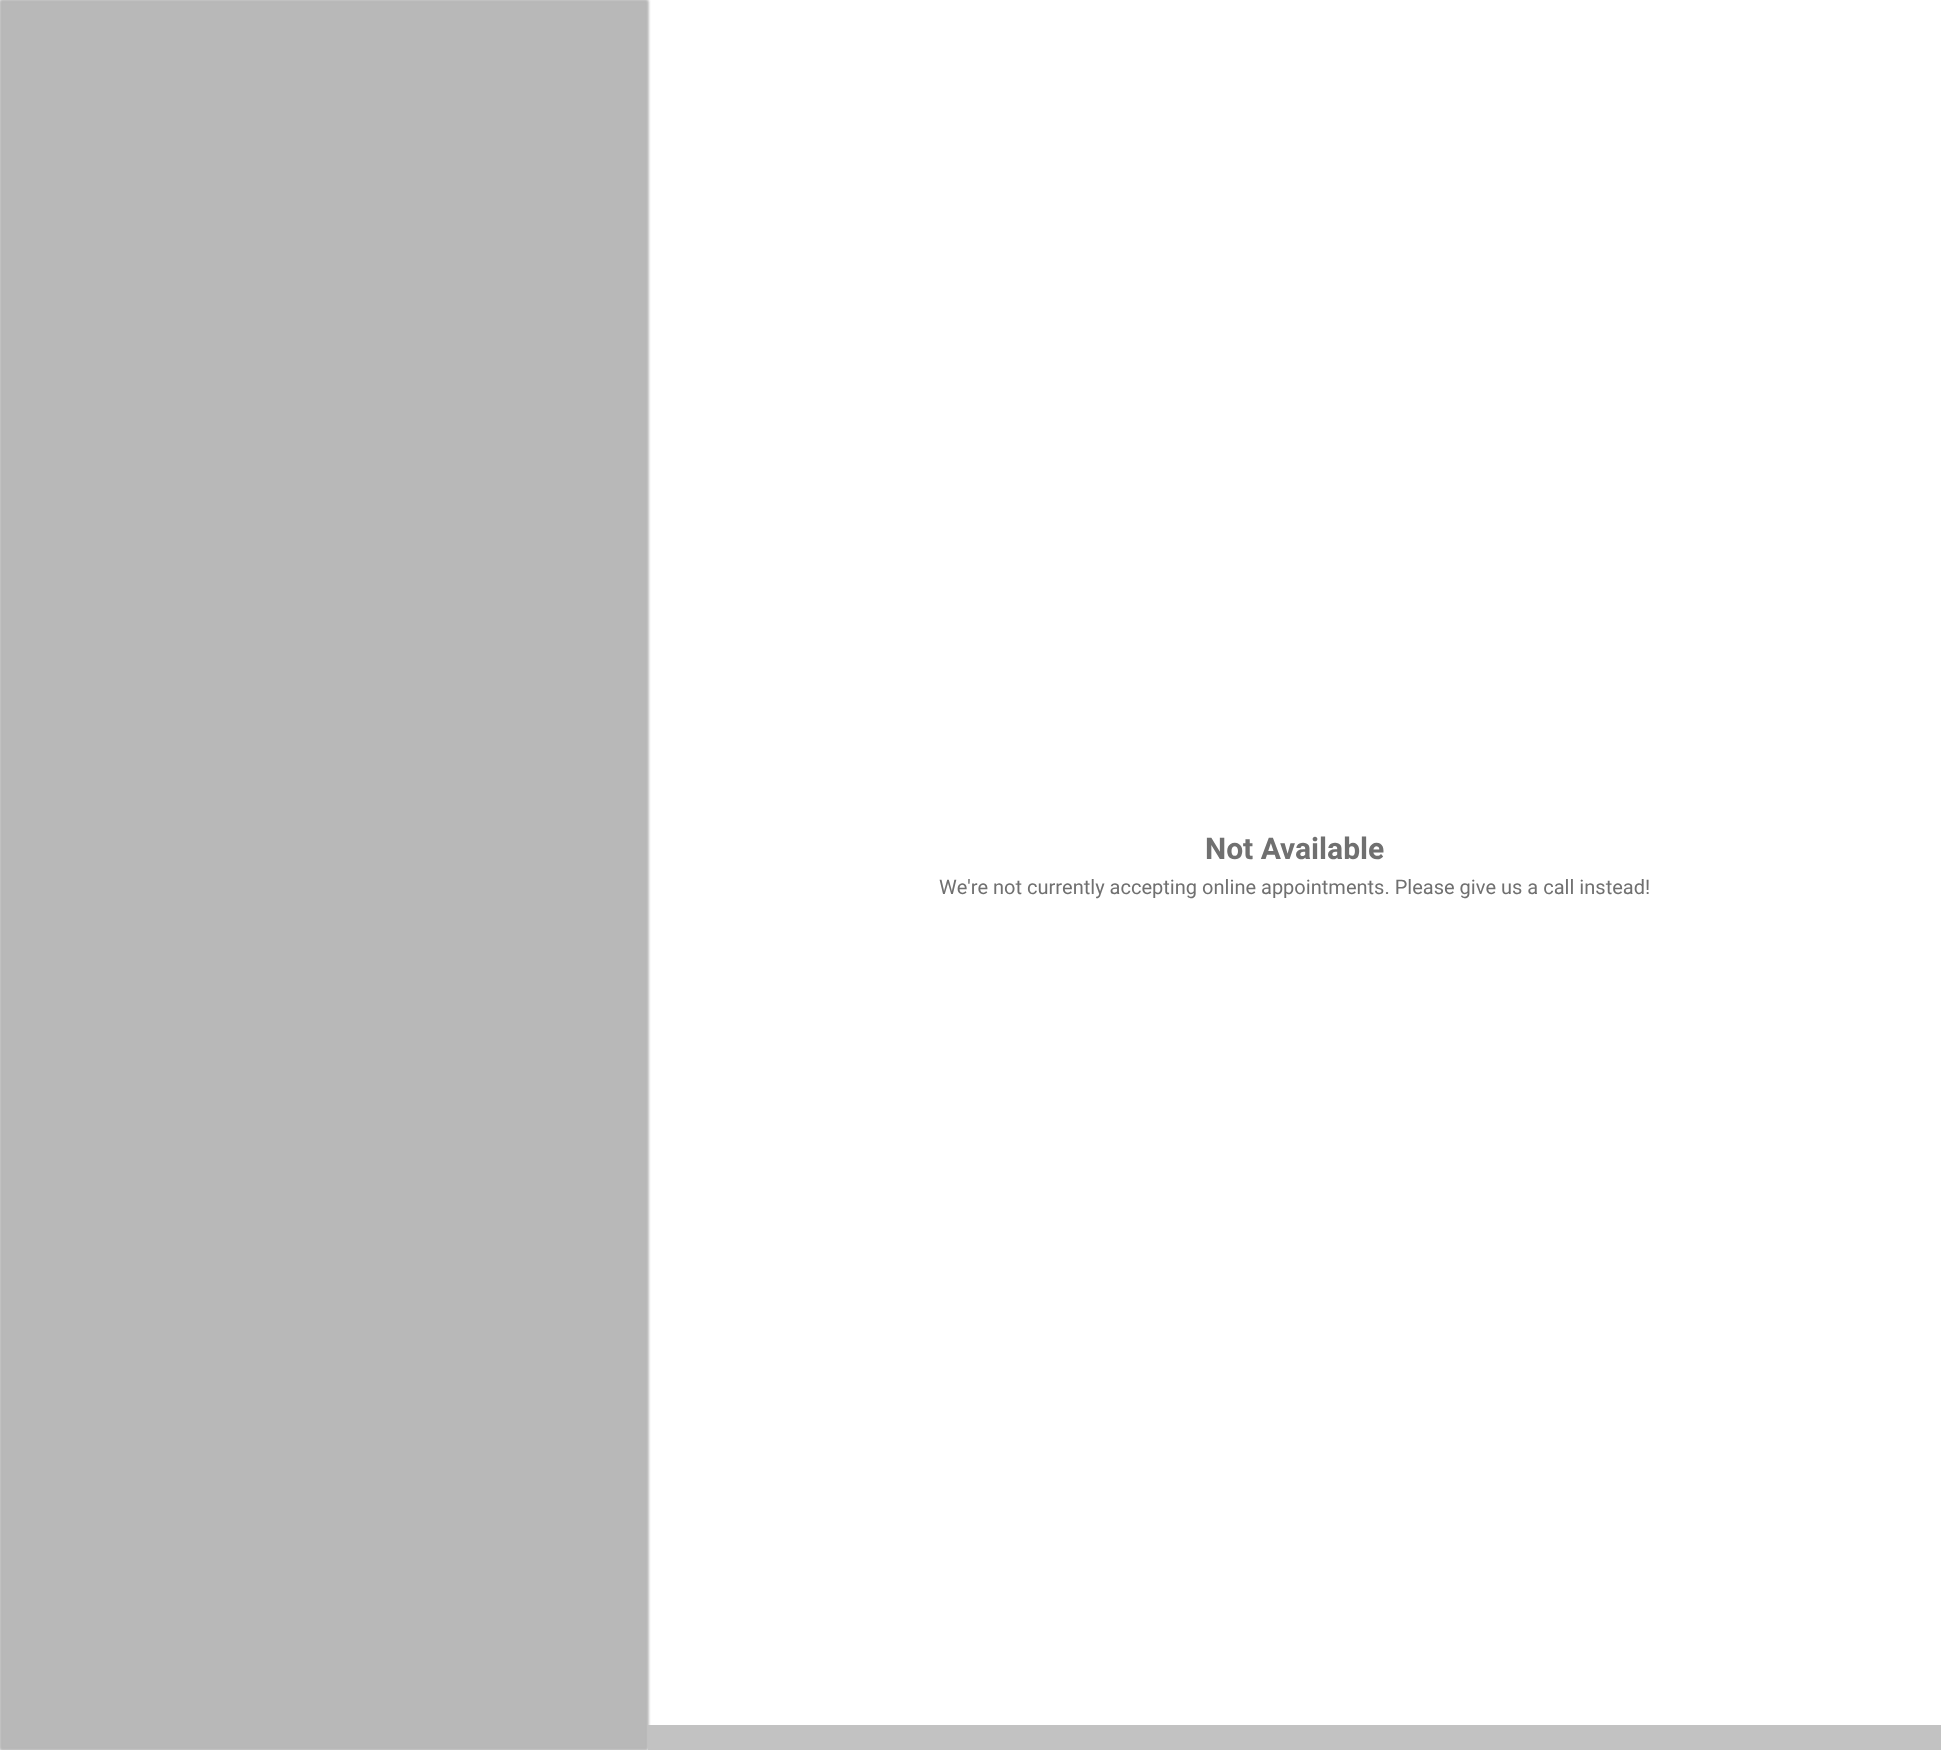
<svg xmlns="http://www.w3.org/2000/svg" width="1941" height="1750">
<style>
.a{font:bold 30px Heebo;fill:#707070}
.b{font:20px Heebo;fill:#707070}
</style>
<rect width="100%" height="100%" fill="#fff"/>
<path fill="#707070" filter="blur(1.5px)" d="M0 0h648v1750H0z"/>
<path fill="#ffffff80" filter="blur(1.5px)" d="M0 0h648v1750H0z"/>
<path fill="#c2c2c2" d="M648 1725h1293v25H648z"/>
<text class="a" x="1205" y="859">Not Available</text>
<text class="b" x="939" y="894">We're not currently accepting online appointments. Please give us a call instead!</text>
</svg>
